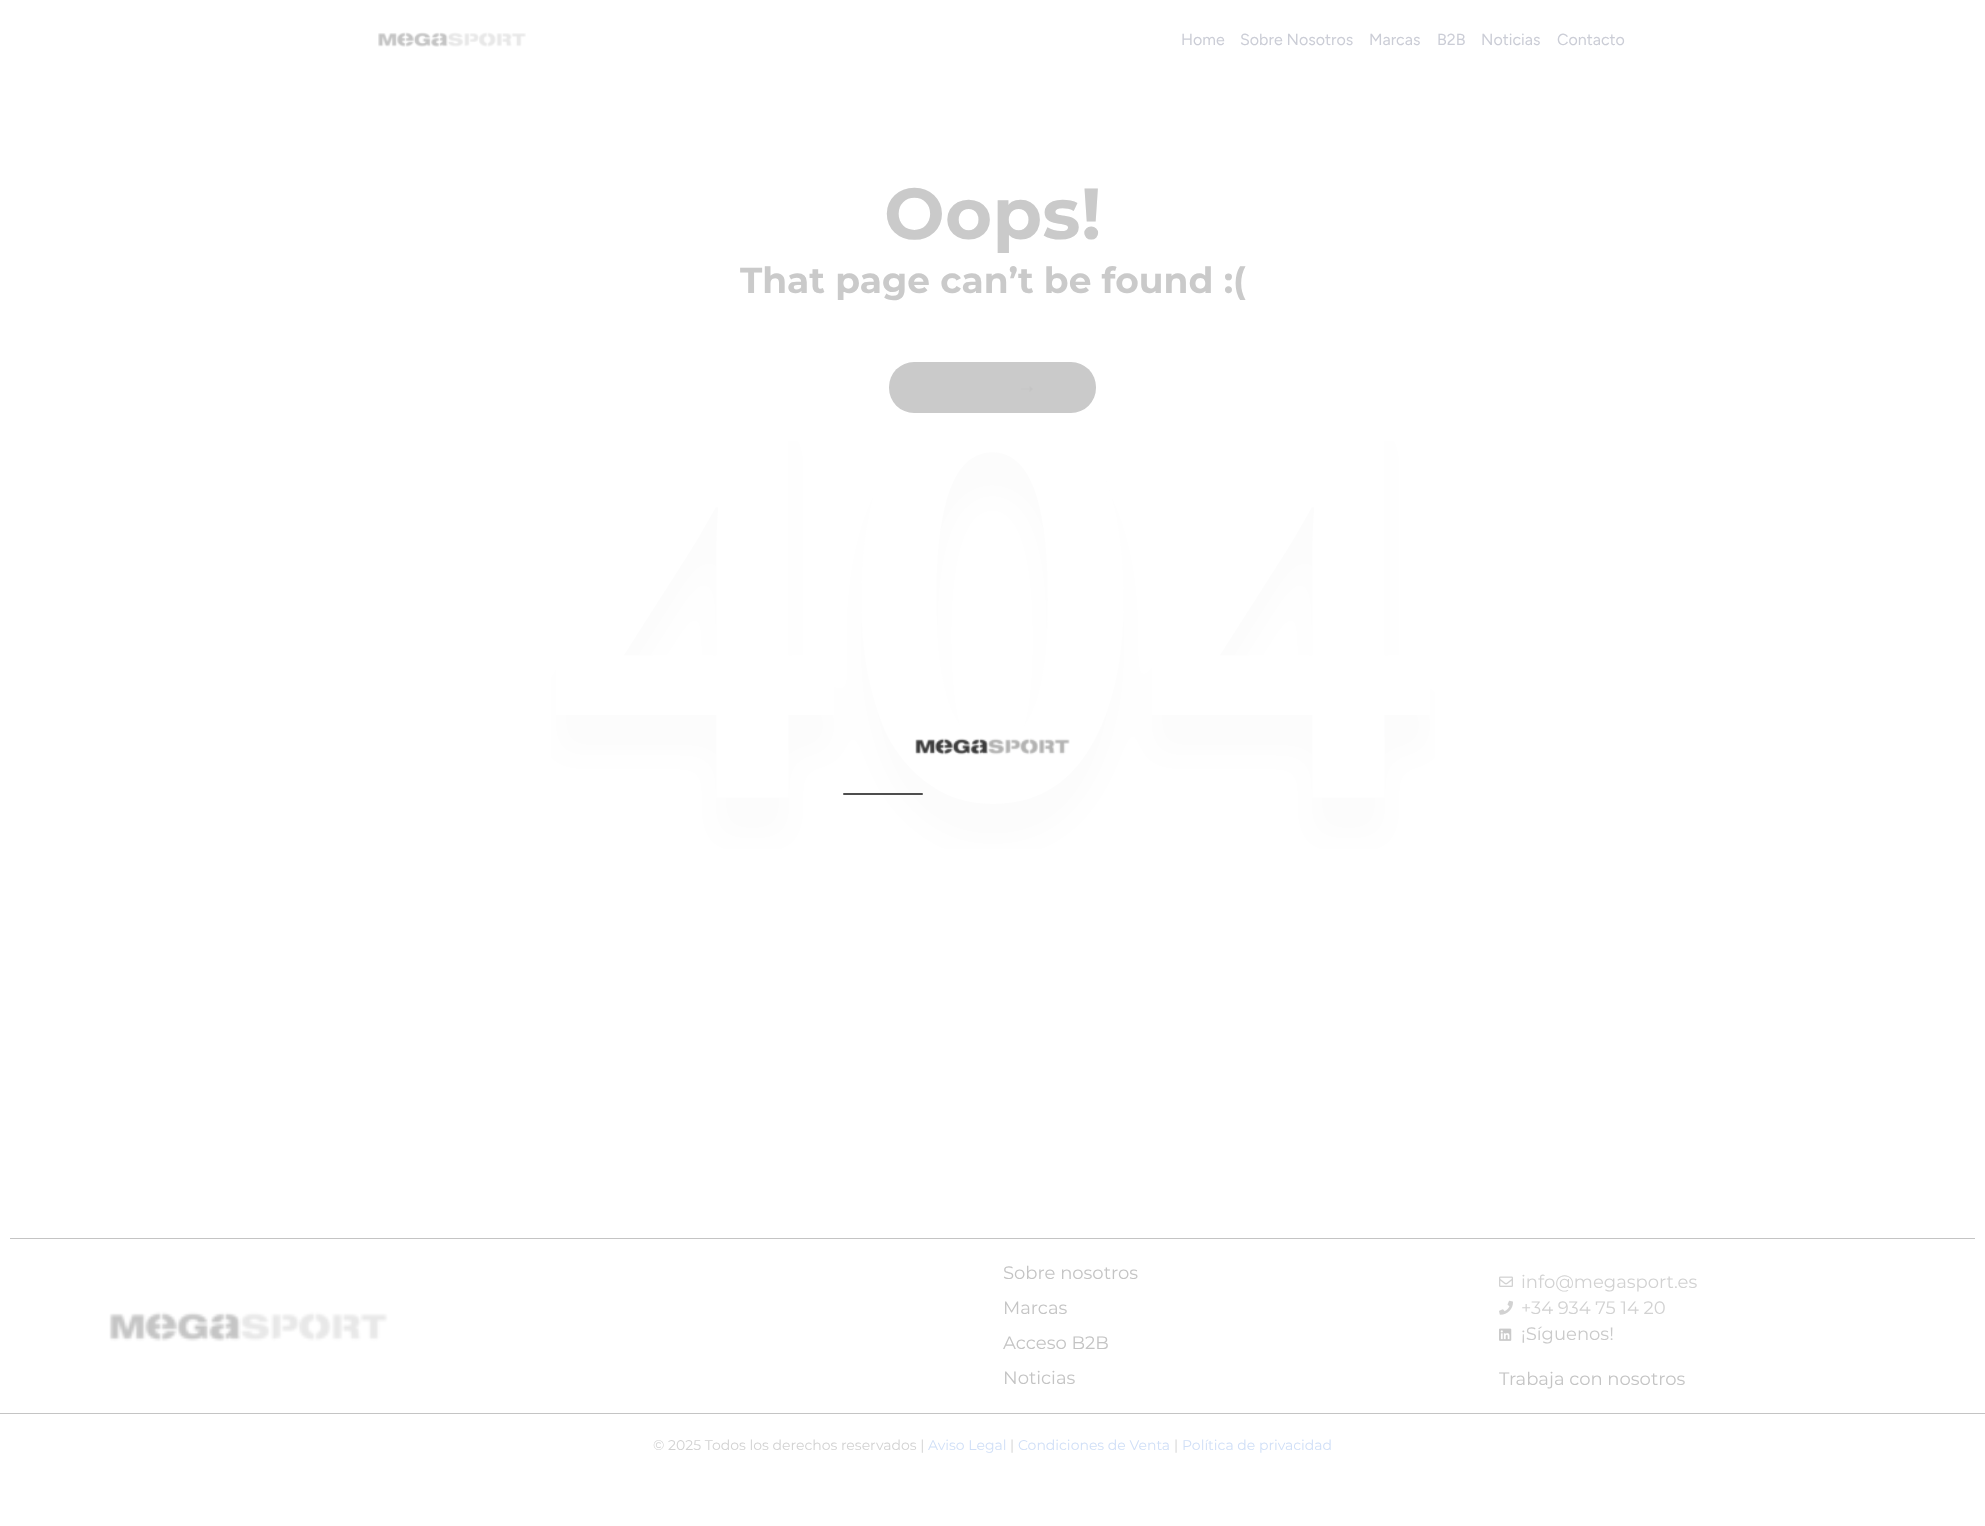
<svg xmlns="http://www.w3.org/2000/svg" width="1985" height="1526">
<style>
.a{font:16px Figtree;fill:#cbcdd6}
.b{font:bold 72px Montserrat;letter-spacing:0.25px;fill:#cacaca}
.c{font:bold 36px Montserrat;fill:#cacaca}
.d{font:18px Montserrat;fill:#c4c4c4}
.e{font:18px Montserrat;fill:#d2d2d2}
.f{font:18px Montserrat;fill:#cacaca}
.g{font:14px Montserrat;fill:#d2d2d2}
.h{font:14px Montserrat;fill:#d0dff7}
</style>
<rect width="100%" height="100%" fill="#fff"/>
<image href="1.png" x="378" y="32" width="148" height="15"/>
<image href="2.png" x="551" y="441" width="884" height="408"/>
<rect fill="#cacaca" x="889" y="362" width="207" height="51" rx="25"/>
<image href="3.png" x="1021" y="386" width="12" height="6"/>
<path fill="#c4c4c4" d="M10 1238h1965v1H10z"/>
<image href="4.png" x="109" y="1311" width="279" height="31"/>
<image href="5.png" x="1499" y="1276" width="14" height="11"/>
<image href="6.png" x="1499" y="1300" width="14" height="15"/>
<image href="7.png" x="1499" y="1328" width="13" height="13"/>
<path fill="#c4c4c4" d="M0 1413h1985v1H0z"/>
<image href="8.png" x="915" y="738" width="155" height="17"/>
<rect fill="#4e4e4e" x="843" y="793" width="80" height="2" rx="1"/>
<text class="a" x="1181" y="45">Home</text>
<text class="a" x="1240" y="45">Sobre Nosotros</text>
<text class="a" x="1369" y="45">Marcas</text>
<text class="a" x="1437" y="45">B2B</text>
<text class="a" x="1481" y="45">Noticias</text>
<text class="a" x="1557" y="45">Contacto</text>
<text class="b" x="884" y="239">Oops!</text>
<text class="c" x="740" y="293">That page can’t be found :(</text>
<text class="d" x="1003" y="1279">Sobre nosotros</text>
<text class="d" x="1003" y="1314">Marcas</text>
<text class="d" x="1003" y="1349">Acceso B2B</text>
<text class="d" x="1003" y="1384">Noticias</text>
<text class="e" x="1521" y="1288">info@megasport.es</text>
<text class="e" x="1521" y="1314">+34 934 75 14 20</text>
<text class="f" x="1521" y="1340">¡Síguenos!</text>
<text class="d" x="1499" y="1385">Trabaja con nosotros</text>
<text class="g" x="653" y="1450">© 2025 Todos los derechos reservados |</text>
<text class="h" x="928" y="1450">Aviso Legal</text>
<text class="g" x="1010" y="1450">|</text>
<text class="h" x="1018" y="1450">Condiciones de Venta</text>
<text class="g" x="1174" y="1450">|</text>
<text class="h" x="1182" y="1450">Política de privacidad</text>
</svg>
